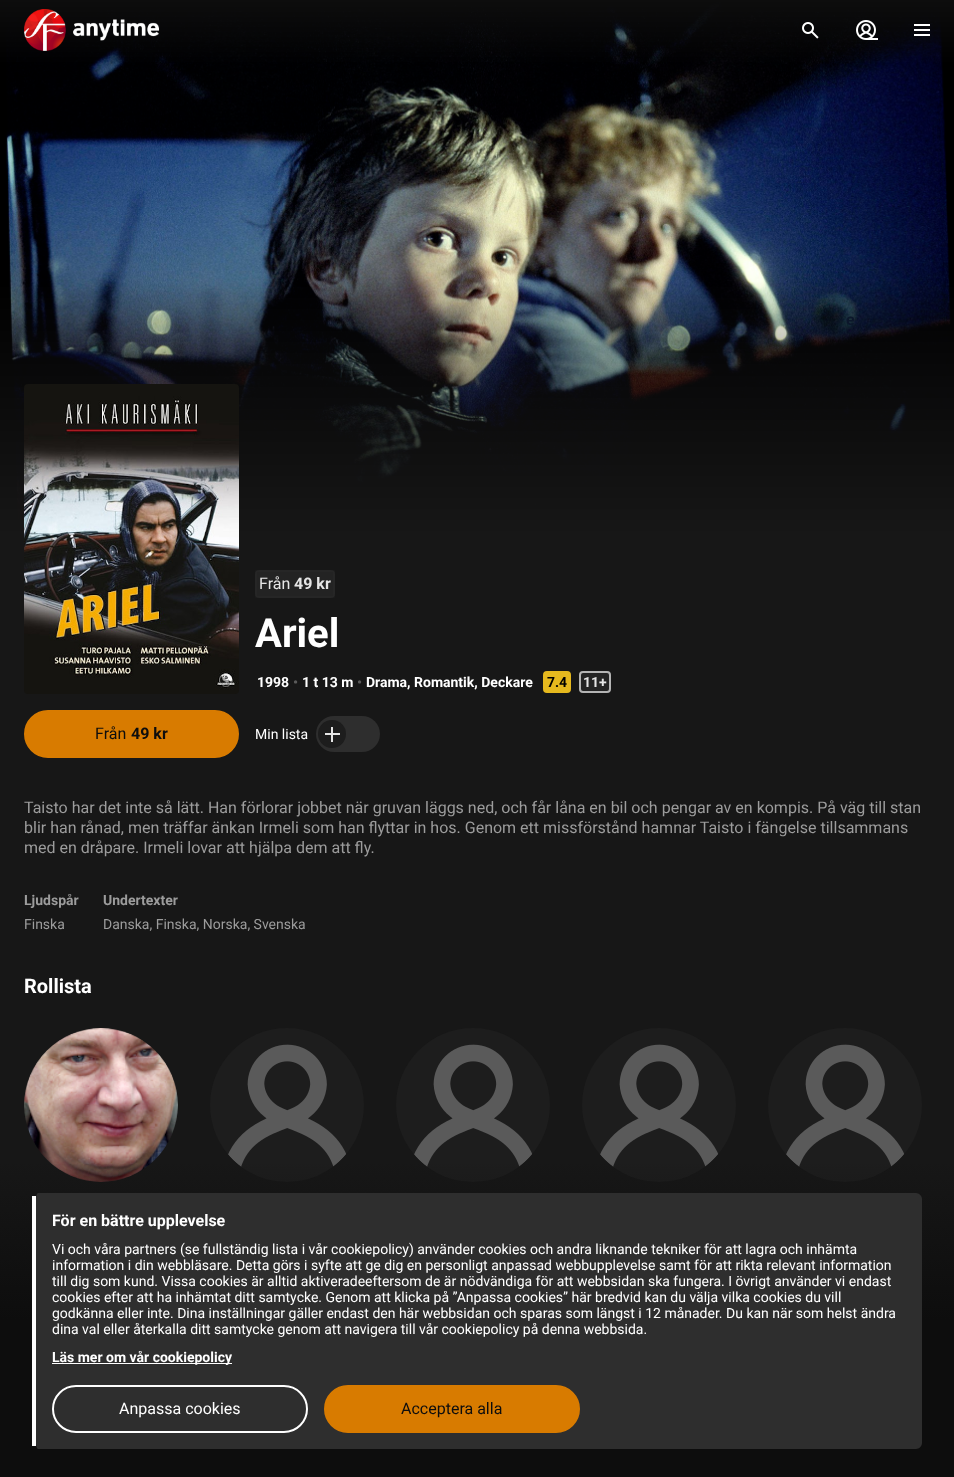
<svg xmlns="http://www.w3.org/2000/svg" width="954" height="1477">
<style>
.a{font:bold 16px Roboto;fill:#0c172b}
.b{font:16px Roboto;fill:#e5e5e5}
.c{font:bold 16px Roboto;fill:#e5e5e5}
.d{font:bold 40px Roboto;fill:#fff}
.e{font:bold 14px Roboto;fill:#fff}
.f{font:bold 14px Roboto;fill:#5a5a5a}
.g{font:bold 14px Roboto;fill:#000}
.h{font:bold 14px Roboto;fill:#e5e5e5}
.i{font:16px Roboto;fill:#0d0d0d}
.j{font:bold 16px Roboto;fill:#0d0d0d}
.k{font:14px Roboto;fill:#fff}
.l{font:16px Roboto;fill:#9c9c9c}
.m{font:bold 14px Roboto;fill:#9c9c9c}
.n{font:14px Roboto;fill:#9c9c9c}
.o{font:bold 20px Roboto;fill:#fff}
.p{font:bold 16px Roboto;fill:#fff}
.q{font:16px Roboto;fill:#fff}
</style>
<defs>
<linearGradient id="g1" gradientUnits="userSpaceOnUse" x1="477" y1="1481" x2="477" y2="1161"><stop offset="0" stop-color="#0d0d0d"/><stop offset="0.5" stop-color="#0d0d0d"/><stop offset="1" stop-color="#0d0d0d" stop-opacity="0"/></linearGradient>
</defs>
<rect width="100%" height="100%" fill="#171717"/>
<image href="4.png" x="0" y="0" width="954" height="537"/>
<image href="1.png" x="24" y="9" width="135" height="42"/>
<image href="2.png" x="802" y="22" width="17" height="17"/>
<image href="3.png" x="856" y="20" width="22" height="20"/>
<path fill="#fff" d="M914 34h16v2H914z"/>
<path fill="#fff" d="M914 24h16v2H914z"/>
<path fill="#fff" d="M914 29h16v2H914z"/>
<image href="5.png" x="24" y="384" width="215" height="310"/>
<rect fill="#232323" x="255" y="570" width="80" height="28" rx="4"/>
<path fill="none" stroke="#5a5a5a0d" stroke-width="2" d="M256 571h78v26H256z"/>
<rect fill="#e6b91e" stroke="#e6b91e" stroke-width="2" x="544" y="672" width="26" height="20" rx="3"/>
<rect fill="#232323" x="579" y="671" width="32" height="22" rx="4"/>
<rect fill="none" stroke="#e5e5e5bf" stroke-width="2" x="580" y="672" width="30" height="20" rx="3"/>
<rect fill="#d87b00" stroke="#d87b00" stroke-width="2" x="25" y="711" width="213" height="46" rx="23"/>
<rect fill="#2e2e2e" x="316" y="716" width="64" height="36" rx="18"/>
<circle fill="#1d1d1d" cx="332" cy="734" r="14"/>
<path fill="#e5e5e5" d="M325 733h15v2H325z"/>
<path fill="#e5e5e5" d="M331 727h2v15H331z"/>
<circle fill="#1d1d1d" cx="101" cy="1105" r="77"/>
<image href="6.png" x="24" y="1028" width="154" height="154"/>
<circle fill="#1d1d1d" cx="287" cy="1105" r="77"/>
<image href="7.png" x="228" y="1044" width="118" height="123"/>
<circle fill="#1d1d1d" cx="473" cy="1105" r="77"/>
<image href="7.png" x="414" y="1044" width="118" height="123"/>
<circle fill="#1d1d1d" cx="659" cy="1105" r="77"/>
<image href="7.png" x="600" y="1044" width="118" height="123"/>
<circle fill="#1d1d1d" cx="845" cy="1105" r="77"/>
<image href="7.png" x="786" y="1044" width="118" height="123"/>
<path fill="url(#g1)" d="M0 1164h954v313H0z"/>
<path fill="#2e2e2e" d="M38 1193h878c3 0 6 3 6 6v244c0 3-3 6-6 6h-878c-1 0-2-3-2-6v-244c0-3 1-6 2-6z"/>
<path fill="#fff" d="M32 1196h4v250H32z"/>
<path fill="#fff" d="M52 1363h180v1H52z"/>
<rect fill="none" stroke="#fff" stroke-width="2" x="53" y="1386" width="254" height="46" rx="23"/>
<rect fill="#d87b00" stroke="#d87b00" stroke-width="2" x="325" y="1386" width="254" height="46" rx="23"/>
<text class="a" x="846" y="325">e</text>
<text class="b" x="259" y="589">Från</text>
<text class="c" x="294" y="589">49 kr</text>
<text class="d" x="255" y="647">Ariel</text>
<text class="e" x="257" y="687">1998</text>
<text class="f" x="293" y="687">•</text>
<text class="e" x="302" y="687">1 t 13 m</text>
<text class="f" x="357" y="687">•</text>
<text class="e" x="366" y="687">Drama, Romantik, Deckare</text>
<text class="g" x="547" y="687">7.4</text>
<text class="h" x="583" y="687">11+</text>
<text class="i" x="95" y="739">Från</text>
<text class="j" x="131" y="739">49 kr</text>
<text class="k" x="255" y="739">Min lista</text>
<text class="l" x="24" y="813">Taisto har det inte så lätt. Han förlorar jobbet när gruvan läggs ned, och får låna en bil och pengar av en kompis. På väg till stan</text>
<text class="l" x="24" y="833">blir han rånad, men träffar änkan Irmeli som han flyttar in hos. Genom ett missförstånd hamnar Taisto i fängelse tillsammans</text>
<text class="l" x="24" y="853">med en dråpare. Irmeli lovar att hjälpa dem att fly.</text>
<text class="m" x="24" y="905">Ljudspår</text>
<text class="n" x="24" y="929">Finska</text>
<text class="m" x="103" y="905">Undertexter</text>
<text class="n" x="103" y="929">Danska, Finska, Norska, Svenska</text>
<text class="o" x="24" y="993">Rollista</text>
<text class="p" x="52" y="1226">För en bättre upplevelse</text>
<text class="k" x="52" y="1254">Vi och våra partners (se fullständig lista i vår cookiepolicy) använder cookies och andra liknande tekniker för att lagra och inhämta</text>
<text class="k" x="52" y="1270">information i din webbläsare. Detta görs i syfte att ge dig en personligt anpassad webbupplevelse samt för att rikta relevant information</text>
<text class="k" x="52" y="1286">till dig som kund. Vissa cookies är alltid aktiveradeeftersom de är nödvändiga för att webbsidan ska fungera. I övrigt använder vi endast</text>
<text class="k" x="52" y="1302">cookies efter att ha inhämtat ditt samtycke. Genom att klicka på ”Anpassa cookies” här bredvid kan du välja vilka cookies du vill</text>
<text class="k" x="52" y="1318">godkänna eller inte. Dina inställningar gäller endast den här webbsidan och sparas som längst i 12 månader. Du kan när som helst ändra</text>
<text class="k" x="52" y="1334">dina val eller återkalla ditt samtycke genom att navigera till vår cookiepolicy på denna webbsida.</text>
<text class="e" x="52" y="1362">Läs mer om vår cookiepolicy</text>
<text class="q" x="119" y="1414">Anpassa cookies</text>
<text class="i" x="401" y="1414">Acceptera alla</text>
</svg>
